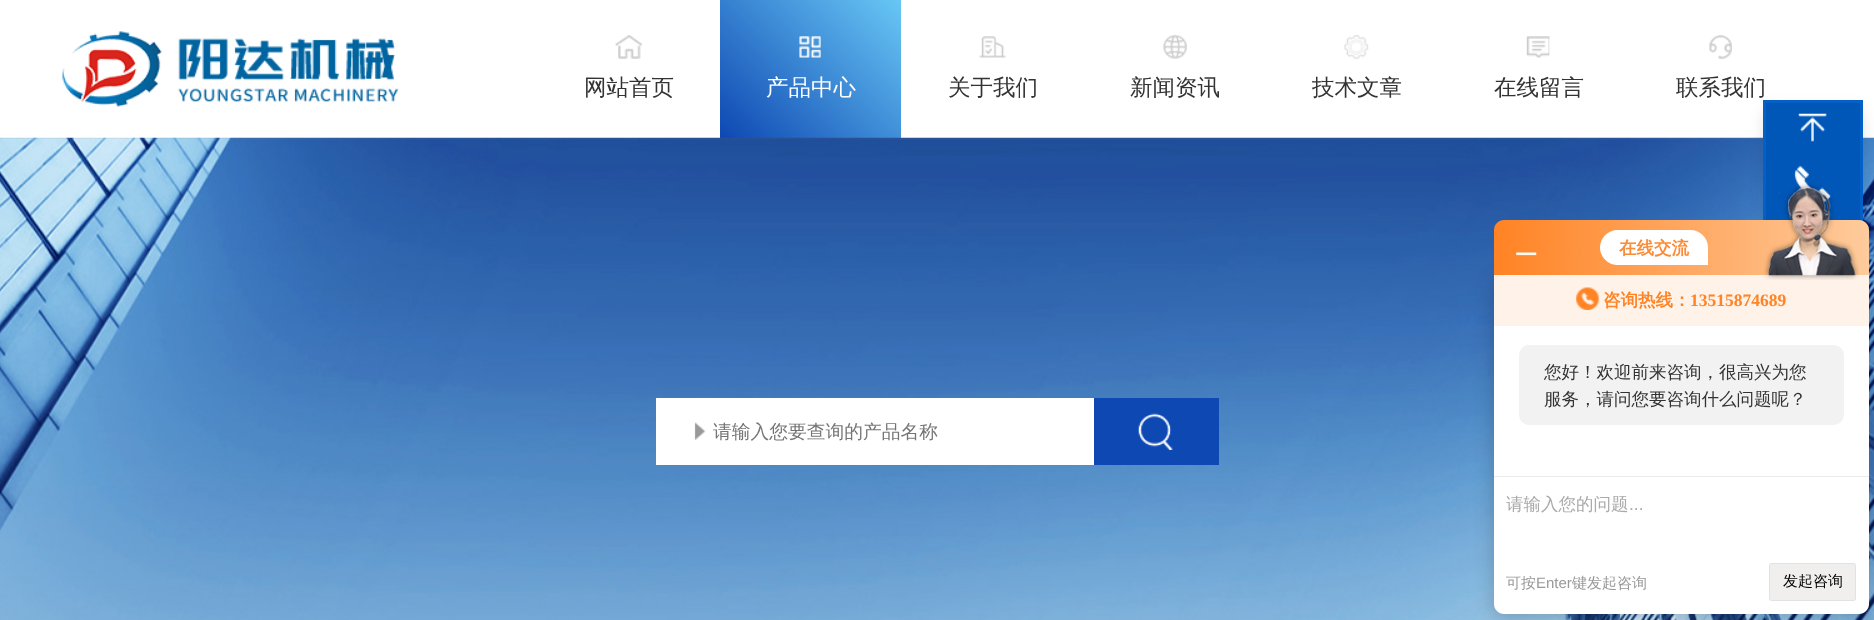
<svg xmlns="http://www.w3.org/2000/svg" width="1874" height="620">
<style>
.a{font:500 22.5px WenQuanYi Zen Hei;fill:#333}
.b{font:500 22.5px WenQuanYi Zen Hei;fill:#fff}
.c{font:500 18.75px WenQuanYi Zen Hei;fill:#757575}
.d{font:bold 17.5px WenQuanYi Zen Hei;fill:#fb8b36}
.e{font:bold 17.5px WenQuanYi Zen Hei;fill:#ff8426}
.f{font:bold 17.5px Liberation Serif;fill:#ff8426}
.g{font:500 17.5px WenQuanYi Zen Hei;fill:#333}
.h{font:500 17.5px WenQuanYi Zen Hei;fill:#aaa}
.i{font:17.5px Liberation Sans;fill:#aaa}
.j{font:500 15px WenQuanYi Zen Hei;fill:#999}
.k{font:15px Liberation Sans;fill:#999}
.l{font:500 15px WenQuanYi Zen Hei;fill:#000}
</style>
<defs>
<linearGradient id="g1" gradientUnits="userSpaceOnUse" x1="731" y1="148" x2="890" y2="-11"><stop offset="0" stop-color="#0e48b3"/><stop offset="1" stop-color="#68c7f5"/></linearGradient>
<linearGradient id="g2" gradientUnits="userSpaceOnUse" x1="1494" y1="248" x2="1869" y2="248"><stop offset="0" stop-color="#ff8324"/><stop offset="1" stop-color="#fecb9c"/></linearGradient>
</defs>
<rect width="100%" height="100%" fill="#fff"/>
<image href="1.png" x="62" y="31" width="337" height="76"/>
<image href="2.png" x="615" y="35" width="27" height="24"/>
<path fill="url(#g1)" d="M720 0h181v138H720z"/>
<image href="3.png" x="799" y="36" width="22" height="22"/>
<image href="4.png" x="979" y="36" width="27" height="22"/>
<image href="5.png" x="1163" y="35" width="24" height="24"/>
<image href="6.png" x="1344" y="35" width="25" height="24"/>
<image href="7.png" x="1526" y="36" width="24" height="22"/>
<image href="8.png" x="1709" y="35" width="23" height="24"/>
<image href="11.png" x="0" y="137" width="1874" height="483"/>
<rect fill="#0000001a" filter="blur(7.5px)" x="1763" y="108" width="100" height="248" rx="10"/>
<path fill="#0057b8" d="M1766 103h94v118H1766z"/>
<path fill="none" stroke="#0460c6" stroke-width="3" d="M1764.5 101.5h97v246H1764.5z"/>
<image href="9.png" x="1798" y="113" width="29" height="29"/>
<image href="10.png" x="1794" y="166" width="37" height="36"/>
<path fill="#fff" d="M656 398h438v67H656z"/>
<image href="12.png" x="694" y="422" width="12" height="19"/>
<path fill="#0e48b3" d="M1094 398h125v67H1094z"/>
<image href="13.png" x="1138" y="413" width="35" height="37"/>
<rect fill="#00000033" filter="blur(10px)" x="1494" y="280" width="375" height="339" rx="10"/>
<path fill="url(#g2)" d="M1504 220h355c5.5 0 10 4.5 10 10v45h-375v-45c0-5.5 4.5-10 10-10z"/>
<image href="14.png" x="1516" y="252" width="21" height="4"/>
<path fill="#fff" d="M1617.5 230h73c9.5 0 17.5 8 17.5 17.5v17.5h-90.5c-9.5 0-17.5-8-17.5-17.5c0-9.5 8-17.5 17.5-17.5z"/>
<path fill="#fff" d="M1494 275h375v329c0 5.5-4.5 10-10 10h-355c-5.5 0-10-4.5-10-10z"/>
<path fill="#fff3e9" d="M1494 275h375v51H1494z"/>
<image href="15.png" x="1764" y="183" width="95" height="97"/>
<image href="16.png" x="1576" y="287" width="24" height="23"/>
<rect fill="#f2f2f2" x="1519" y="345" width="325" height="80" rx="10"/>
<path fill="#eaeaea" d="M1494 476h375v1H1494z"/>
<rect fill="#f0efed" stroke="#e2e2e2" x="1769.5" y="563.5" width="86" height="37" rx="2"/>
<text class="a" x="584" y="95">网站首页</text>
<text class="b" x="766" y="95">产品中心</text>
<text class="a" x="948" y="95">关于我们</text>
<text class="a" x="1130" y="95">新闻资讯</text>
<text class="a" x="1312" y="95">技术文章</text>
<text class="a" x="1494" y="95">在线留言</text>
<text class="a" x="1676" y="95">联系我们</text>
<text class="c" x="713" y="438">请输入您要查询的产品名称</text>
<text class="d" x="1619" y="254">在线交流</text>
<text class="e" x="1603" y="306">咨询热线：</text>
<text class="f" x="1690" y="306">13515874689</text>
<text class="g" x="1544" y="378">您好！欢迎前来咨询，很高兴为您</text>
<text class="g" x="1544" y="405">服务，请问您要咨询什么问题呢？</text>
<text class="h" x="1506" y="510">请输入您的问题</text>
<text class="i" x="1629" y="510">...</text>
<text class="j" x="1506" y="588">可按</text>
<text class="k" x="1536" y="588">Enter</text>
<text class="j" x="1572" y="588">键发起咨询</text>
<text class="l" x="1783" y="586">发起咨询</text>
</svg>
